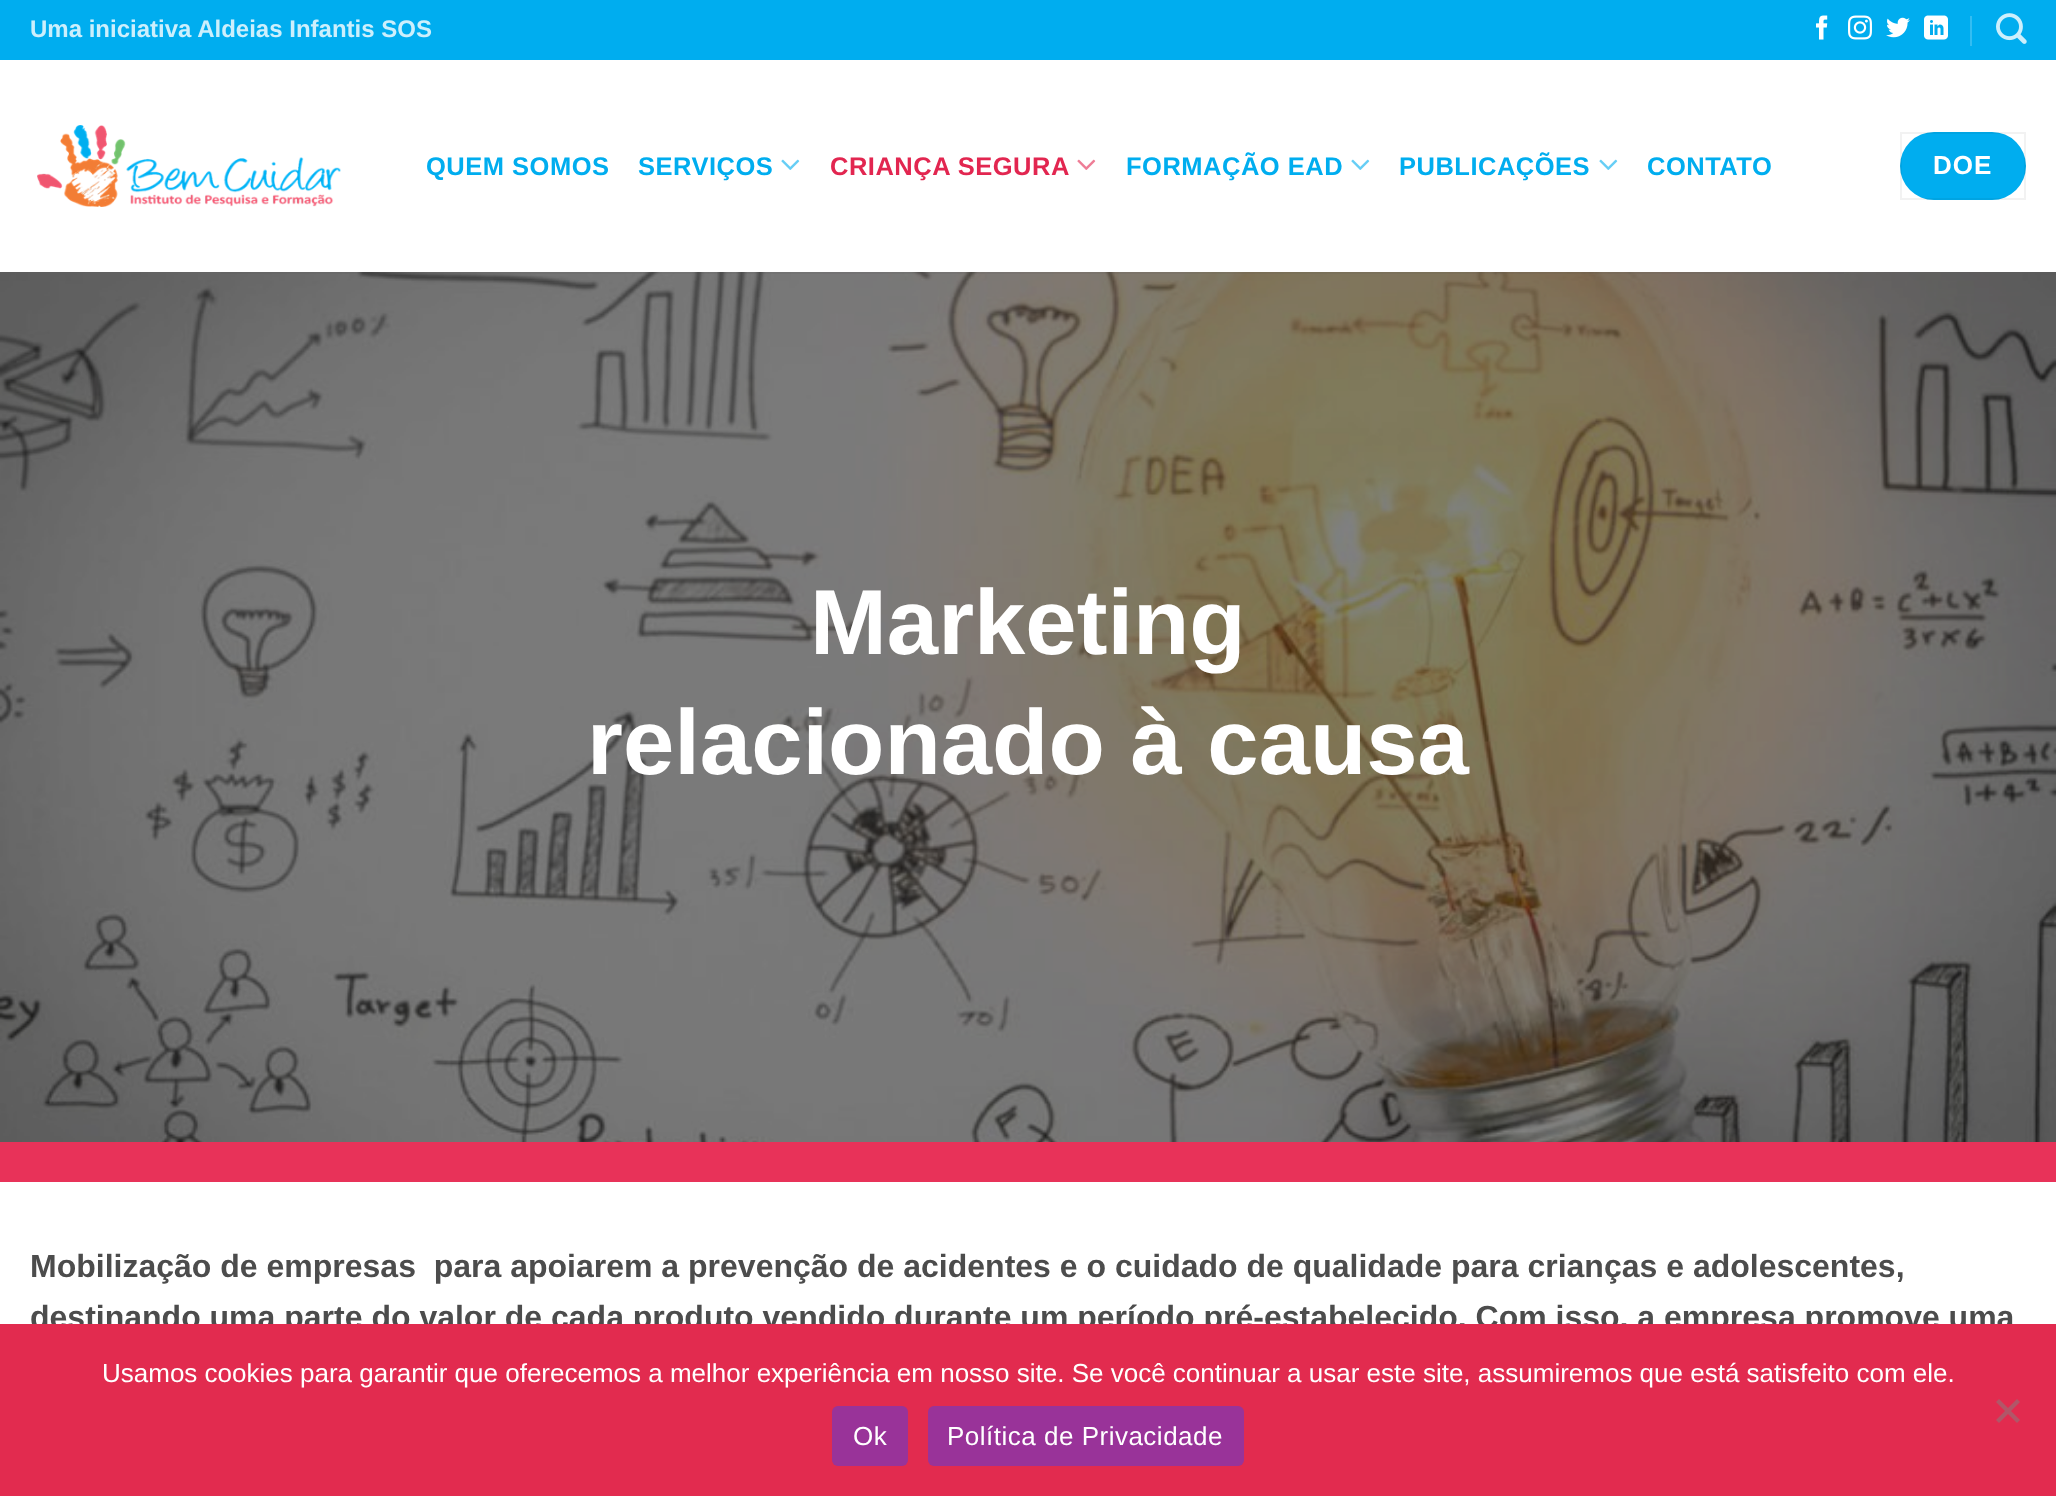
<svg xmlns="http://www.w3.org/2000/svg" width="2056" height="1496">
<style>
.a{font:bold 24px Arimo;fill:#cceffc}
.b{font:bold 25.5px Arimo;letter-spacing:0.5px;fill:#00adef}
.c{font:bold 25.5px Arimo;letter-spacing:0.5px;fill:#e22650}
.d{font:bold 26px Arimo;letter-spacing:1px;fill:#fff}
.e{font:bold 92.25px Arimo;fill:#fff}
.f{font:bold 32px Arimo;fill:#4c4c4c}
.g{font:26px Liberation Sans;fill:#fff}
.h{font:26px Liberation Sans;letter-spacing:0.5px;fill:#fff}
</style>
<rect width="100%" height="100%" fill="#fff"/>
<path fill="#00adef" d="M0 0h2056v60H0z"/>
<image href="1.png" x="1816" y="15" width="12" height="25"/>
<image href="2.png" x="1848" y="15" width="24" height="25"/>
<image href="3.png" x="1886" y="17" width="24" height="21"/>
<image href="4.png" x="1924" y="15" width="24" height="25"/>
<path fill="#33bdf2" d="M1970 16h2v30H1970z"/>
<image href="5.png" x="1996" y="13" width="31" height="31"/>
<image href="6.png" x="37" y="125" width="304" height="82"/>
<image href="7.png" x="781" y="159" width="19" height="11"/>
<image href="8.png" x="1077" y="159" width="19" height="11"/>
<image href="7.png" x="1351" y="159" width="19" height="11"/>
<image href="7.png" x="1599" y="159" width="19" height="11"/>
<rect fill="#00adef" x="1900" y="132" width="126" height="68" rx="34"/>
<path fill="none" stroke="#0000000d" stroke-width="2" d="M1901 133h124v66H1901z"/>
<image href="9.png" x="0" y="272" width="2056" height="870"/>
<path fill="#4c4c4c1a" d="M221 272h1623v2H221z"/>
<path fill="#e83259" d="M0 1142h2056v40H0z"/>
<text class="a" x="30" y="37">Uma iniciativa Aldeias Infantis SOS</text>
<text class="b" x="426" y="175">QUEM SOMOS</text>
<text class="b" x="638" y="175">SERVIÇOS</text>
<text class="c" x="830" y="175">CRIANÇA SEGURA</text>
<text class="b" x="1126" y="175">FORMAÇÃO EAD</text>
<text class="b" x="1399" y="175">PUBLICAÇÕES</text>
<text class="b" x="1647" y="175">CONTATO</text>
<text class="d" x="1933" y="174">DOE</text>
<text class="e" x="810" y="654">Marketing</text>
<text class="e" x="587" y="774">relacionado à causa</text>
<text class="f" xml:space="preserve" x="30" y="1277">Mobilização de empresas  para apoiarem a prevenção de acidentes e o cuidado de qualidade para crianças e adolescentes,</text>
<text class="f" x="30" y="1328">destinando uma parte do valor de cada produto vendido durante um período pré-estabelecido. Com isso, a empresa promove uma</text>
<path fill="#e22b4f" d="M0 1324h2056v172H0z"/>
<text class="g" x="102" y="1382">Usamos cookies para garantir que oferecemos a melhor experiência em nosso site. Se você continuar a usar este site, assumiremos que está satisfeito com ele.</text>
<path fill="#b15668" d="M2017 1399l3 3l-21 21l-3-3z"/>
<path fill="#b15668" d="M1996 1402l3-3l21 21l-3 3z"/>
<rect fill="#939" x="832" y="1406" width="76" height="60" rx="6"/>
<text class="h" x="853" y="1445">Ok</text>
<rect fill="#939" x="928" y="1406" width="316" height="60" rx="6"/>
<text class="h" x="947" y="1445">Política de Privacidade</text>
</svg>
